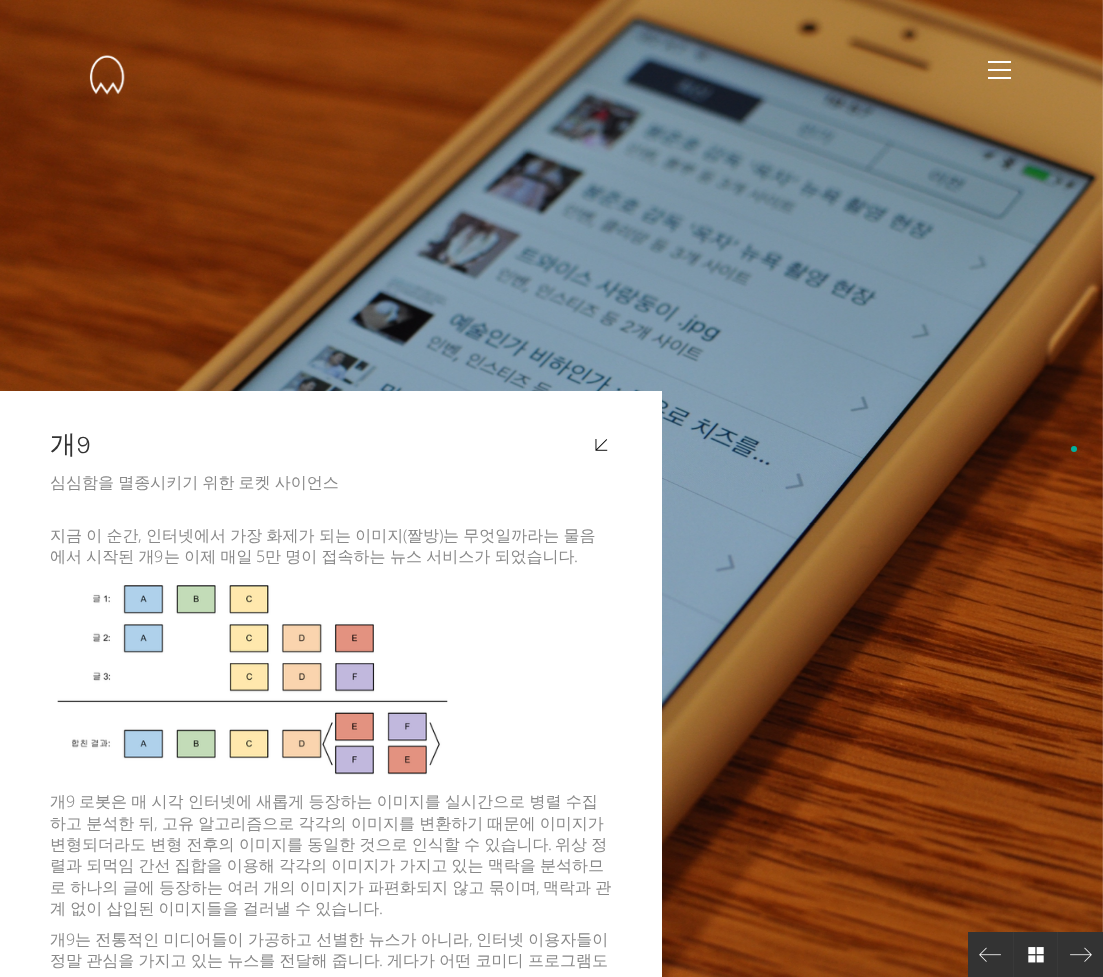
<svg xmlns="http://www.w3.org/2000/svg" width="1103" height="977">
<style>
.a{font:500 26px WenQuanYi Zen Hei;fill:#333}
.b{font:300 26px Karla;fill:#333}
.c{font:500 16px WenQuanYi Zen Hei;fill:#898989}
.d{font:300 16px Noto Sans;fill:#898989}
</style>
<rect width="100%" height="100%" fill="#fff"/>
<image href="1.png" x="0" y="0" width="1103" height="977"/>
<image href="2.png" x="89" y="55" width="36" height="40"/>
<path fill="#fff" d="M988 69h23v2H988z"/>
<path fill="#fff" d="M988 61h23v2H988z"/>
<path fill="#fff" d="M988 77h23v2H988z"/>
<path fill="#fff" d="M0 391h662v586H0z"/>
<image href="3.png" x="595" y="439" width="13" height="12"/>
<image href="4.png" x="57" y="585" width="391" height="190"/>
<circle fill="#00b19e" cx="1074" cy="449" r="3"/>
<path fill="#333" d="M968 932h45v45H968z"/>
<image href="5.png" x="979" y="947" width="22" height="15"/>
<path fill="#333" d="M1014 932h43v45H1014z"/>
<path fill="#393939" d="M1057 932h1v45H1057z"/>
<path fill="#393939" d="M1013 932h1v45H1013z"/>
<image href="6.png" x="1028" y="947" width="16" height="16"/>
<path fill="#333" d="M1058 932h45v45H1058z"/>
<image href="7.png" x="1070" y="947" width="22" height="15"/>
<text class="a" x="50" y="453">개</text>
<text class="b" x="76" y="453">9</text>
<text class="c" x="50" y="488" word-spacing="-0.6">심심함을 멸종시키기 위한 로켓 사이언스</text>
<text class="c" x="50" y="541" word-spacing="-0.5">지금 이 순간</text>
<text class="d" x="138" y="541">,</text>
<text class="c" x="146" y="541" word-spacing="-0.5">인터넷에서 가장 화제가 되는 이미지</text>
<text class="d" x="403" y="541">(</text>
<text class="c" x="407" y="541">짤방</text>
<text class="d" x="439" y="541">)</text>
<text class="c" x="443" y="541" word-spacing="-0.5">는 무엇일까라는 물음</text>
<text class="c" x="50" y="562" word-spacing="-0.5">에서 시작된 개</text>
<text class="d" x="154" y="562">9</text>
<text class="c" x="164" y="562" word-spacing="-0.5">는 이제 매일</text>
<text class="d" x="256" y="562">5</text>
<text class="c" x="265" y="562" word-spacing="-0.5">만 명이 접속하는 뉴스 서비스가 되었습니다</text>
<text class="d" x="574" y="562">.</text>
<text class="c" x="50" y="807">개</text>
<text class="d" x="66" y="807">9</text>
<text class="c" x="79" y="807" word-spacing="-0.5">로봇은 매 시각 인터넷에 새롭게 등장하는 이미지를 실시간으로 병렬 수집</text>
<text class="c" x="50" y="829" word-spacing="-0.5">하고 분석한 뒤</text>
<text class="d" x="154" y="829">,</text>
<text class="c" x="162" y="829" word-spacing="-0.5">고유 알고리즘으로 각각의 이미지를 변환하기 때문에 이미지가</text>
<text class="c" x="50" y="850" word-spacing="-0.5">변형되더라도 변형 전후의 이미지를 동일한 것으로 인식할 수 있습니다</text>
<text class="d" x="548" y="850">.</text>
<text class="c" x="555" y="850" word-spacing="-0.5">위상 정</text>
<text class="c" x="50" y="871" word-spacing="-0.6">렬과 되먹임 간선 집합을 이용해 각각의 이미지가 가지고 있는 맥락을 분석하므</text>
<text class="c" x="50" y="893" word-spacing="-0.5">로 하나의 글에 등장하는 여러 개의 이미지가 파편화되지 않고 묶이며</text>
<text class="d" x="536" y="893">,</text>
<text class="c" x="543" y="893" word-spacing="-0.5">맥락과 관</text>
<text class="c" x="50" y="914" word-spacing="-0.6">계 없이 삽입된 이미지들을 걸러낼 수 있습니다</text>
<text class="d" x="379" y="914">.</text>
<text class="c" x="50" y="945">개</text>
<text class="d" x="66" y="945">9</text>
<text class="c" x="75" y="945" word-spacing="-0.5">는 전통적인 미디어들이 가공하고 선별한 뉴스가 아니라</text>
<text class="d" x="469" y="945">,</text>
<text class="c" x="476" y="945" word-spacing="-0.5">인터넷 이용자들이</text>
<text class="c" x="50" y="966" word-spacing="-0.5">정말 관심을 가지고 있는 뉴스를 전달해 줍니다</text>
<text class="d" x="379" y="966">.</text>
<text class="c" x="387" y="966" word-spacing="-0.5">게다가 어떤 코미디 프로그램도</text>
</svg>
